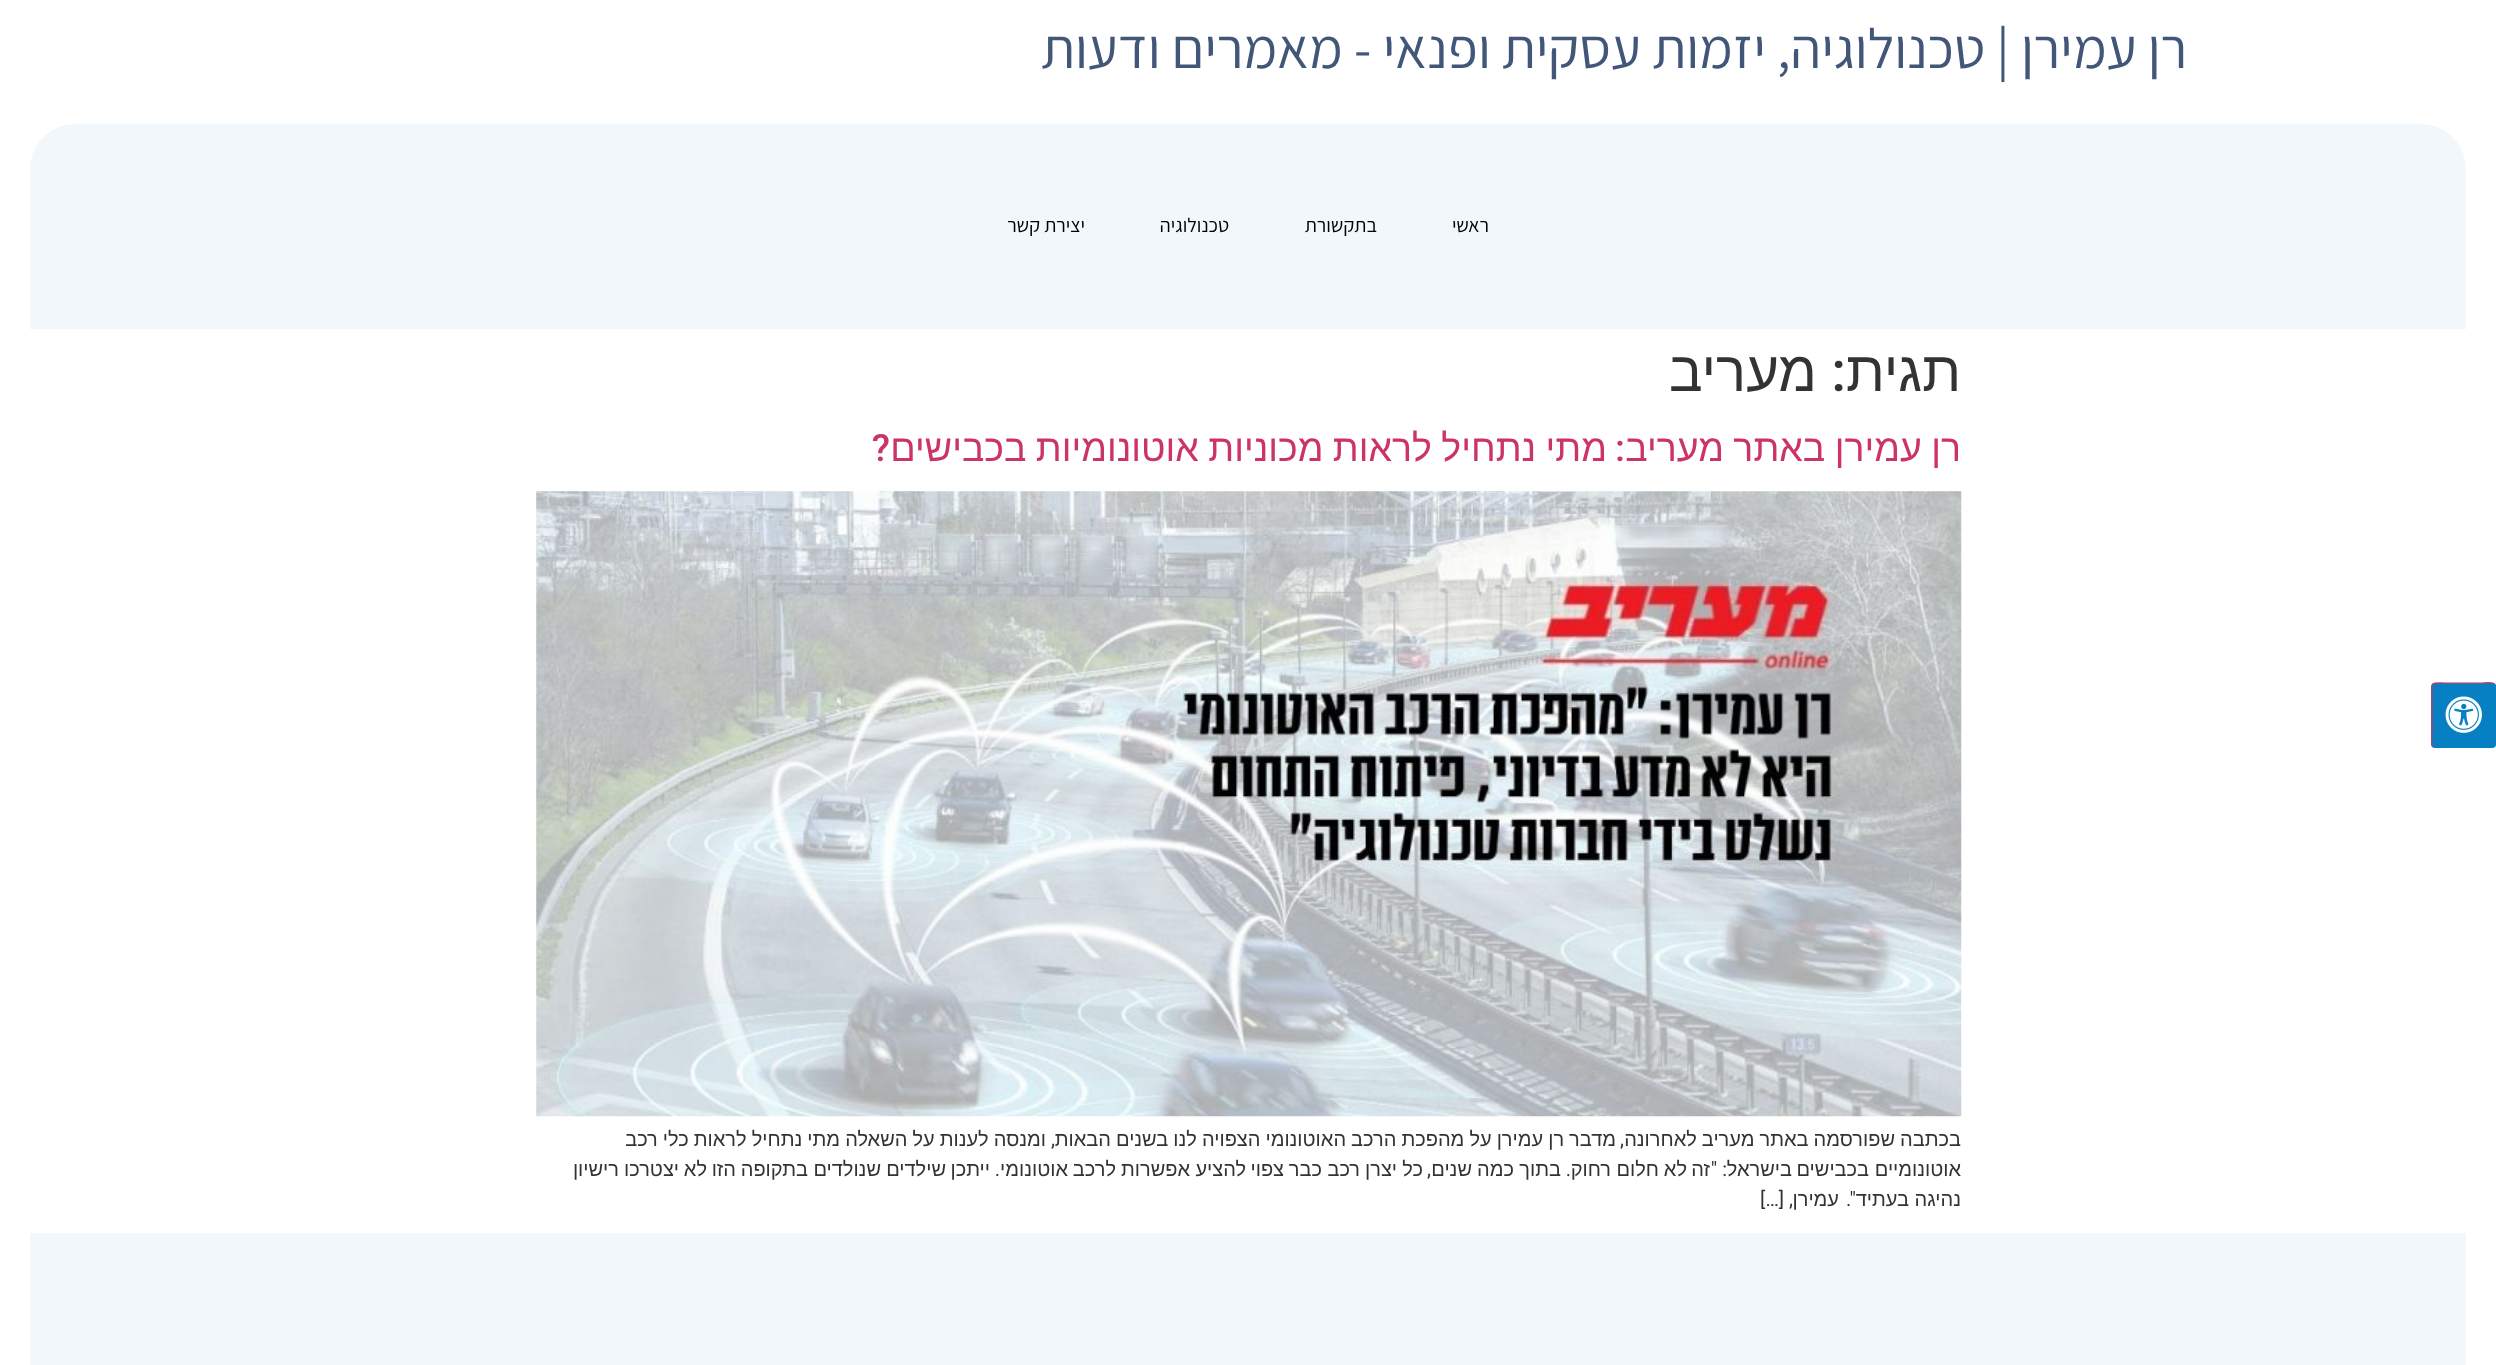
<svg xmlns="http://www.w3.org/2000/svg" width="2496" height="1365">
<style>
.a{font:56.25px Assistant;direction:rtl;fill:#415678}
.b{font:20px Assistant;direction:rtl;fill:#000}
.c{font:56.25px Liberation Sans;direction:rtl;fill:#333}
.d{font:500 56.25px Roboto;direction:rtl;fill:#333}
.e{font:37.5px Liberation Sans;direction:rtl;fill:#c36}
.f{font:500 37.5px Roboto;direction:rtl;fill:#c36}
.g{font:20px Liberation Sans;direction:rtl;fill:#333}
.h{font:20px Roboto;direction:rtl;fill:#333}
</style>
<rect width="100%" height="100%" fill="#fff"/>
<path fill="#f2f7fb" d="M75 124h2346c25 0 45 20 45 45v160h-2436v-160c0-25 20-45 45-45z"/>
<path fill="#fff" fill-rule="evenodd" d="M75 94h2346c42 0 75 33 75 75v160h-2496v-160c0-42 34-75 75-75zm0 30h2346c25 0 45 20 45 45v160h-2436v-160c0-25 20-45 45-45z"/>
<rect fill="#0780c3" x="2431" y="683" width="65" height="65" rx="4"/>
<path fill="none" stroke="#0780c3" stroke-width="1.2" d="M2494.5 684c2.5 2.5 1 11 1 12v38c0 14.5 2 13-12.5 13h-38.5c-.5 0-9.5 1.5-11.5-1"/>
<path fill="none" stroke="#c36" stroke-width="1.2" d="M2433 746c-2.5-2.5-1-11-1-12v-38c0-14.5-2-13 12.5-13h38.5c.5 0 9.5-1.5 11.5 1"/>
<image href="1.png" x="2445" y="696" width="37" height="37"/>
<image href="2.png" x="536" y="491" width="1426" height="626"/>
<path fill="#f2f7fb" d="M30 1233h2436v132H30z"/>
<text class="a" x="2187" y="68">רן עמירן | טכנולוגיה, יזמות עסקית ופנאי - מאמרים ודעות</text>
<text class="b" x="1489" y="232">ראשי</text>
<text class="b" x="1377" y="232">בתקשורת</text>
<text class="b" x="1229" y="232">טכנולוגיה</text>
<text class="b" x="1085" y="232">יצירת קשר</text>
<text class="c" x="1961" y="391">תגית</text>
<text class="d" x="1846" y="391">:</text>
<text class="c" x="1817" y="391">מעריב</text>
<text class="e" x="1961" y="461" word-spacing="-1">רן עמירן באתר מעריב</text>
<text class="f" x="1625" y="461">:</text>
<text class="e" x="1607" y="461" word-spacing="-1">מתי נתחיל לראות מכוניות אוטונומיות בכבישים</text>
<text class="f" x="890" y="461">?</text>
<text class="g" x="1961" y="1146" word-spacing="-0.5">בכתבה שפורסמה באתר מעריב לאחרונה</text>
<text class="h" x="1624" y="1146">,</text>
<text class="g" x="1616" y="1146" word-spacing="-0.5">מדבר רן עמירן על מהפכת הרכב האוטונומי הצפויה לנו בשנים הבאות</text>
<text class="h" x="1055" y="1146">,</text>
<text class="g" x="1046" y="1146" word-spacing="-0.5">ומנסה לענות על השאלה מתי נתחיל לראות כלי רכב</text>
<text class="g" x="1961" y="1176">אוטונומיים</text>
<text class="g" x="1869" y="1176">בכבישים</text>
<text class="g" x="1792" y="1176">בישראל</text>
<text class="h" x="1727" y="1176">: "</text>
<text class="g" x="1710" y="1176">זה</text>
<text class="g" x="1687" y="1176">לא</text>
<text class="g" x="1659" y="1176">חלום</text>
<text class="g" x="1611" y="1176">רחוק</text>
<text class="h" x="1571" y="1176">.</text>
<text class="g" x="1561" y="1176">בתוך</text>
<text class="g" x="1514" y="1176">כמה</text>
<text class="g" x="1472" y="1176">שנים</text>
<text class="h" x="1431" y="1176">,</text>
<text class="g" x="1423" y="1176">כל</text>
<text class="g" x="1397" y="1176">יצרן</text>
<text class="g" x="1360" y="1176">רכב</text>
<text class="g" x="1322" y="1176">כבר</text>
<text class="g" x="1284" y="1176">צפוי</text>
<text class="g" x="1246" y="1176">להציע</text>
<text class="g" x="1190" y="1176">אפשרות</text>
<text class="g" x="1116" y="1176">לרכב</text>
<text class="g" x="1068" y="1176">אוטונומי</text>
<text class="h" x="1000" y="1176">.</text>
<text class="g" x="990" y="1176">ייתכן</text>
<text class="g" x="946" y="1176">שילדים</text>
<text class="g" x="881" y="1176">שנולדים</text>
<text class="g" x="808" y="1176">בתקופה</text>
<text class="g" x="736" y="1176">הזו</text>
<text class="g" x="707" y="1176">לא</text>
<text class="g" x="679" y="1176">יצטרכו</text>
<text class="g" x="619" y="1176">רישיון</text>
<text class="g" x="1961" y="1206">נהיגה</text>
<text class="g" x="1909" y="1206">בעתיד</text>
<text class="h" x="1856" y="1206">".</text>
<text class="g" x="1839" y="1206">עמירן</text>
<text class="h" x="1793" y="1206">, […]</text>
</svg>
